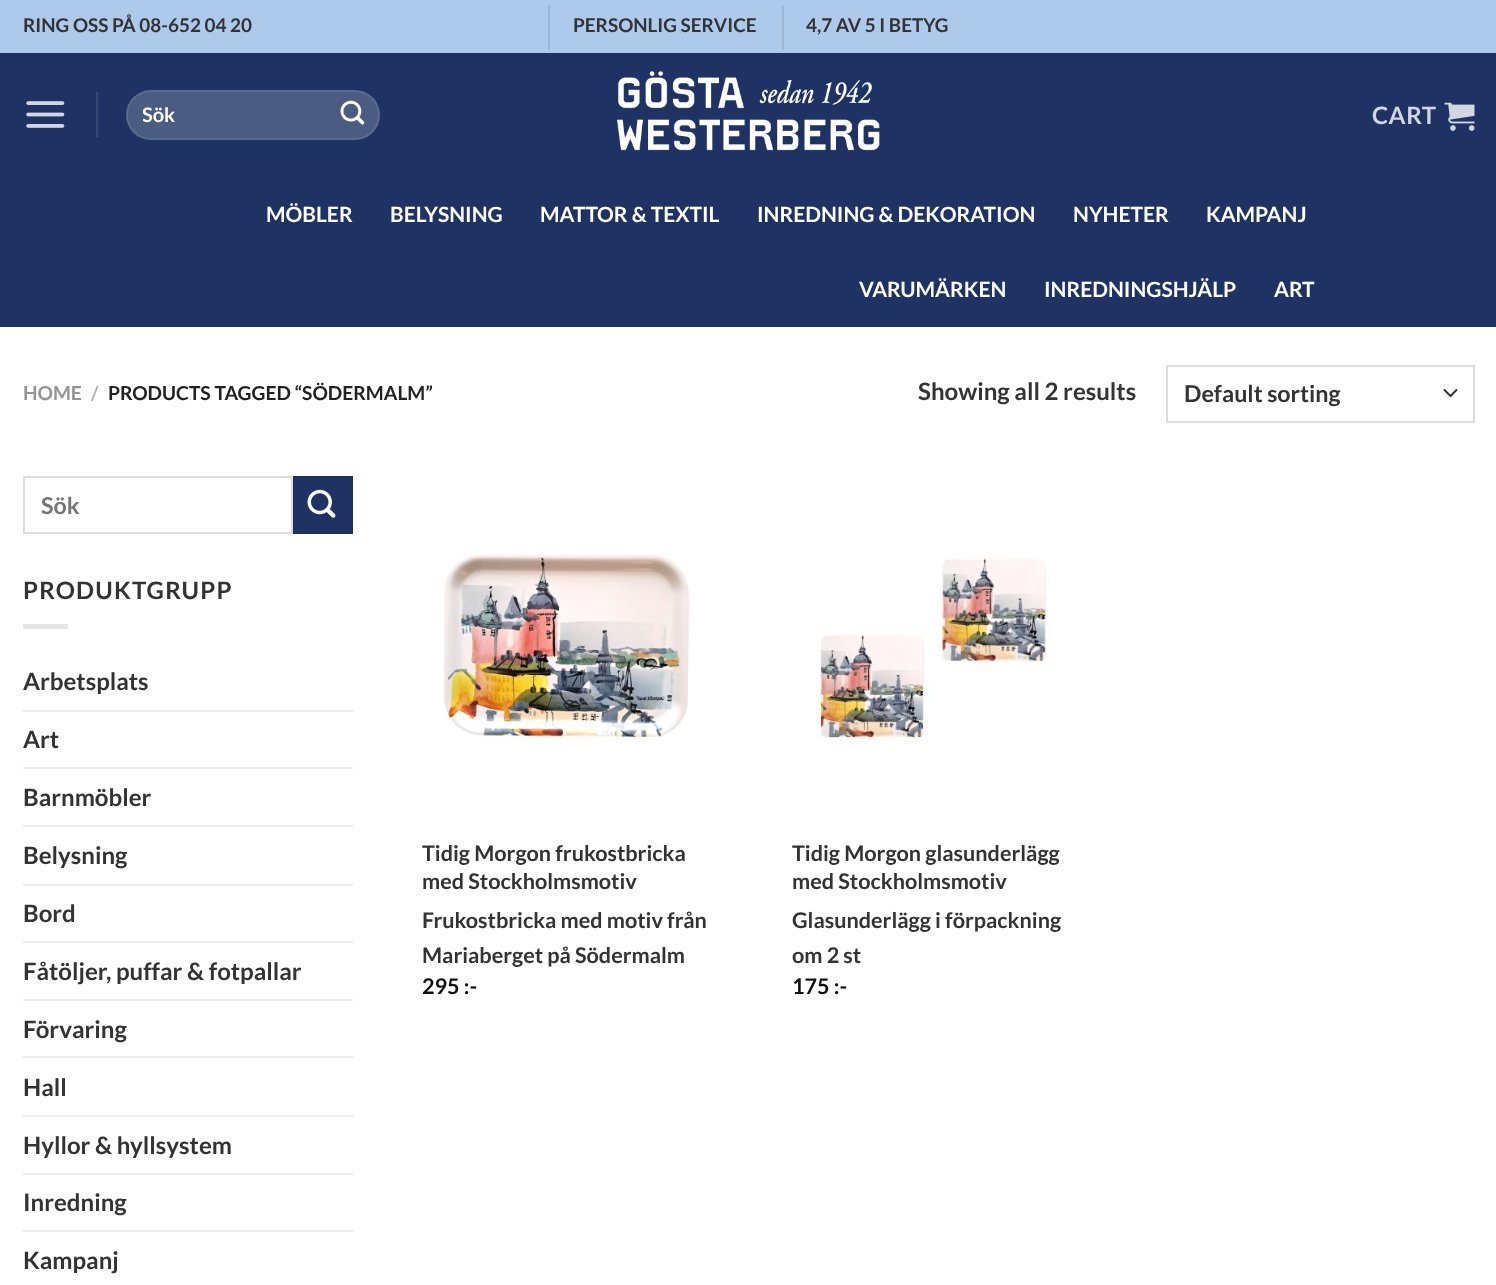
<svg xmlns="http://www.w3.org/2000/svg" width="1496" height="1285">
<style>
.a{font:bold 18.9px Lato;fill:#333}
.b{font:bold 20px Lato;fill:#fff}
.c{font:bold 24px Lato;letter-spacing:0.5px;fill:#d2d6e0}
.d{font:bold 21px Lato;fill:#fff}
.e{font:bold 19.25px Lato;fill:#949494}
.f{font:bold 19.25px Lato;fill:#b2b2b2}
.g{font:bold 19.25px Lato;fill:#222}
.h{font:bold 24px Lato;fill:#333}
.i{font:bold 23.25px Lato;fill:#333}
.j{font:bold 23.25px Lato;fill:#757575}
.k{font:bold 24px Lato;letter-spacing:1.25px;fill:#333}
.l{font:bold 21.6px Lato;fill:#333}
.m{font:bold 21.6px Lato;fill:#111}
</style>
<defs>
<clipPath id="clip1"><path d="M143 102h214v24H143z"/></clipPath>
</defs>
<rect width="100%" height="100%" fill="#fff"/>
<path fill="#adcaeb" d="M0 0h1496v53H0z"/>
<path fill="#9cb6d4" d="M548 5h2v45H548z"/>
<path fill="#9cb6d4" d="M782 5h2v45H782z"/>
<path fill="#1e3363" d="M0 53h1496v274H0z"/>
<image href="1.png" x="26" y="101" width="39" height="27"/>
<path fill="#354773" d="M96 92h2v45H96z"/>
<rect fill="#4b5c82" x="126" y="90" width="254" height="50" rx="25"/>
<rect fill="none" stroke="#ffffff17" stroke-width="2" x="127" y="91" width="252" height="48" rx="24"/>
<image href="2.png" x="340" y="100" width="25" height="25"/>
<image href="3.png" x="617" y="71" width="263" height="80"/>
<image href="4.png" x="1444" y="102" width="31" height="29"/>
<path fill="none" stroke="#333" stroke-width="2" stroke-linecap="round" stroke-linejoin="round" d="M1444.5 390l6 6l6-6"/>
<path fill="none" stroke="#ddd" stroke-width="2" d="M1167 366h307v56H1167z"/>
<path fill="none" stroke="#ddd" stroke-width="2" d="M24 477h268v56H24z"/>
<path fill="#1e3363" stroke="#1d305e" stroke-width="2" d="M294 477h58v56H294z"/>
<image href="5.png" x="307" y="489" width="29" height="29"/>
<path fill="#e6e6e6" d="M23 624h45v5H23z"/>
<path fill="#ececec" d="M23 710h330v2H23z"/>
<path fill="#ececec" d="M23 767h330v2H23z"/>
<path fill="#ececec" d="M23 825h330v2H23z"/>
<path fill="#ececec" d="M23 884h330v2H23z"/>
<path fill="#ececec" d="M23 941h330v2H23z"/>
<path fill="#ececec" d="M23 999h330v2H23z"/>
<path fill="#ececec" d="M23 1056h330v2H23z"/>
<path fill="#ececec" d="M23 1115h330v2H23z"/>
<path fill="#ececec" d="M23 1173h330v2H23z"/>
<path fill="#ececec" d="M23 1230h330v2H23z"/>
<image href="6.png" x="443" y="553" width="247" height="194"/>
<image href="7.png" x="817" y="556" width="234" height="190"/>
<text class="a" x="23" y="32">RING OSS PÅ 08-652 04 20</text>
<text class="a" x="573" y="32">PERSONLIG SERVICE</text>
<text class="a" x="806" y="32">4,7 AV 5 I BETYG</text>
<g clip-path="url(#clip1)">
<text class="b" x="142" y="122">Sök</text>
</g>
<text class="c" x="1372" y="124">CART</text>
<text class="d" x="266" y="222">MÖBLER</text>
<text class="d" x="390" y="222">BELYSNING</text>
<text class="d" x="540" y="222">MATTOR &amp; TEXTIL</text>
<text class="d" x="757" y="222">INREDNING &amp; DEKORATION</text>
<text class="d" x="1073" y="222">NYHETER</text>
<text class="d" x="1206" y="222">KAMPANJ</text>
<text class="d" x="859" y="297">VARUMÄRKEN</text>
<text class="d" x="1044" y="297">INREDNINGSHJÄLP</text>
<text class="d" x="1274" y="297">ART</text>
<text class="e" x="23" y="400">HOME</text>
<text class="f" x="91" y="400">/</text>
<text class="g" x="108" y="400">PRODUCTS TAGGED “SÖDERMALM”</text>
<text class="h" x="918" y="400">Showing all 2 results</text>
<text class="i" x="1184" y="402">Default sorting</text>
<text class="j" x="41" y="514">Sök</text>
<text class="k" x="23" y="599">PRODUKTGRUPP</text>
<text class="h" x="23" y="690">Arbetsplats</text>
<text class="h" x="23" y="748">Art</text>
<text class="h" x="23" y="806">Barnmöbler</text>
<text class="h" x="23" y="864">Belysning</text>
<text class="h" x="23" y="922">Bord</text>
<text class="h" x="23" y="980">Fåtöljer, puffar &amp; fotpallar</text>
<text class="h" x="23" y="1038">Förvaring</text>
<text class="h" x="23" y="1096">Hall</text>
<text class="h" x="23" y="1154">Hyllor &amp; hyllsystem</text>
<text class="h" x="23" y="1211">Inredning</text>
<text class="h" x="23" y="1269">Kampanj</text>
<text class="l" x="422" y="861">Tidig Morgon frukostbricka</text>
<text class="l" x="422" y="889">med Stockholmsmotiv</text>
<text class="l" x="422" y="928">Frukostbricka med motiv från</text>
<text class="l" x="422" y="963">Mariaberget på Södermalm</text>
<text class="m" x="422" y="994">295 :-</text>
<text class="l" x="792" y="861">Tidig Morgon glasunderlägg</text>
<text class="l" x="792" y="889">med Stockholmsmotiv</text>
<text class="l" x="792" y="928">Glasunderlägg i förpackning</text>
<text class="l" x="792" y="963">om 2 st</text>
<text class="m" x="792" y="994">175 :-</text>
</svg>
